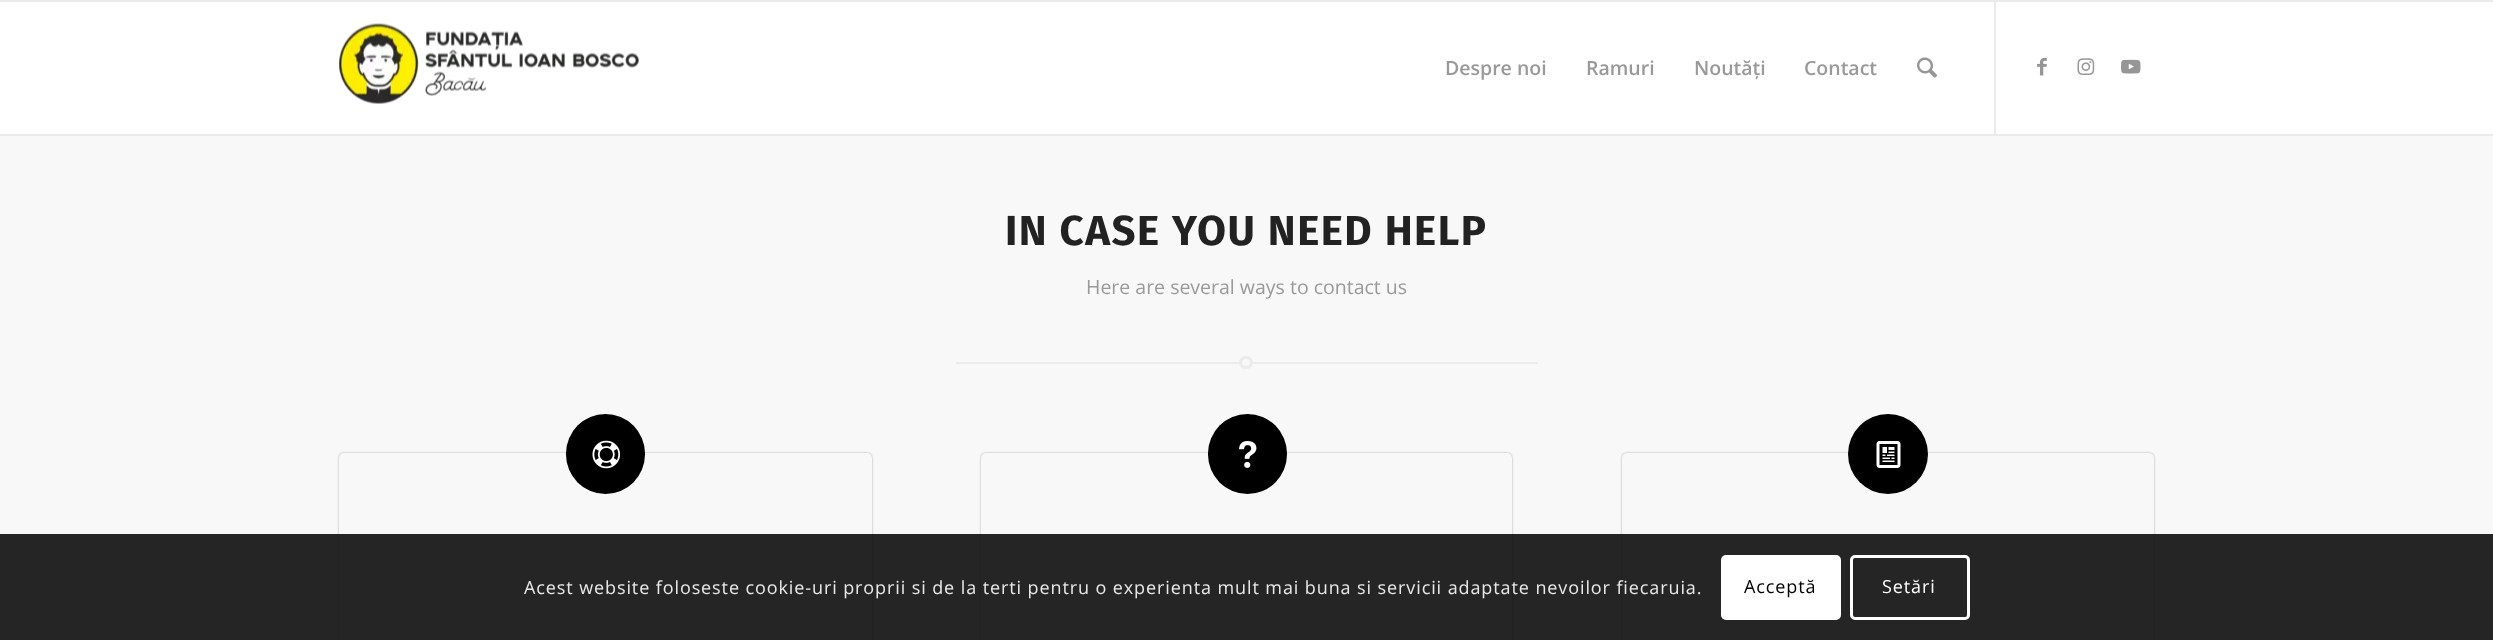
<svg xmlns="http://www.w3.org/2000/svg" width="2493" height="640">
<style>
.a{font:600 19.5px Open Sans;fill:#999}
.b{font:bold 42px Fira Sans;letter-spacing:1.5px;fill:#222}
.c{font:19.5px Open Sans;fill:#999}
.d{font:18px Open Sans;letter-spacing:0.9px;fill:#e9e9e9}
.e{font:18px Open Sans;letter-spacing:0.9px;fill:#000}
.f{font:18px Open Sans;letter-spacing:0.9px;fill:#fff}
</style>
<rect width="100%" height="100%" fill="#fff"/>
<path fill="#ebebeb" d="M0 0h2493v2H0z"/>
<path fill="#ebebeb" d="M0 134h2493v2H0z"/>
<image href="1.png" x="339" y="23" width="300" height="81"/>
<path fill="#ebebeb" d="M1994 2h2v132H1994z"/>
<image href="2.png" x="1917" y="57" width="21" height="21"/>
<image href="3.png" x="2037" y="57" width="10" height="19"/>
<image href="4.png" x="2077" y="58" width="18" height="17"/>
<image href="5.png" x="2121" y="59" width="20" height="15"/>
<path fill="#f8f8f8" d="M0 136h2493v504H0z"/>
<path fill="#ebebeb" d="M956 362h582v2H956z"/>
<rect fill="#f8f8f8" stroke="#ebebeb" stroke-width="3" x="1240.5" y="357.5" width="11" height="10" rx="5"/>
<rect fill="#0000004d" filter="blur(1px)" x="339" y="453" width="533" height="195" rx="5"/>
<rect fill="#f8f8f8" x="339" y="453" width="533" height="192" rx="5"/>
<rect fill="#000" x="566" y="414" width="79" height="80" rx="39.5"/>
<image href="6.png" x="592" y="440" width="29" height="29"/>
<rect fill="#0000004d" filter="blur(1px)" x="981" y="453" width="531" height="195" rx="5"/>
<rect fill="#f8f8f8" x="981" y="453" width="531" height="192" rx="5"/>
<rect fill="#000" x="1208" y="414" width="79" height="80" rx="39.5"/>
<image href="7.png" x="1239" y="441" width="18" height="27"/>
<rect fill="#0000004d" filter="blur(1px)" x="1622" y="453" width="532" height="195" rx="5"/>
<rect fill="#f8f8f8" x="1622" y="453" width="532" height="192" rx="5"/>
<circle fill="#000" cx="1888" cy="454" r="40"/>
<image href="8.png" x="1876" y="441" width="25" height="27"/>
<path fill="#000000d9" d="M0 534h2493v106H0z"/>
<rect fill="#fff" x="1721" y="555" width="120" height="65" rx="5"/>
<rect fill="none" stroke="#fff" stroke-width="3" x="1851.5" y="556.5" width="117" height="62" rx="3.5"/>
<text class="a" x="1445" y="75">Despre noi</text>
<text class="a" x="1586" y="75">Ramuri</text>
<text class="a" x="1694" y="75">Noutăți</text>
<text class="a" x="1804" y="75">Contact</text>
<text class="b" x="1005" y="245">IN CASE YOU NEED HELP</text>
<text class="c" x="1086" y="294">Here are several ways to contact us</text>
<text class="d" x="524" y="594">Acest website foloseste cookie-uri proprii si de la terti pentru o experienta mult mai buna si servicii adaptate nevoilor fiecaruia.</text>
<text class="e" x="1744" y="593">Acceptă</text>
<text class="f" x="1882" y="593">Setări</text>
</svg>
